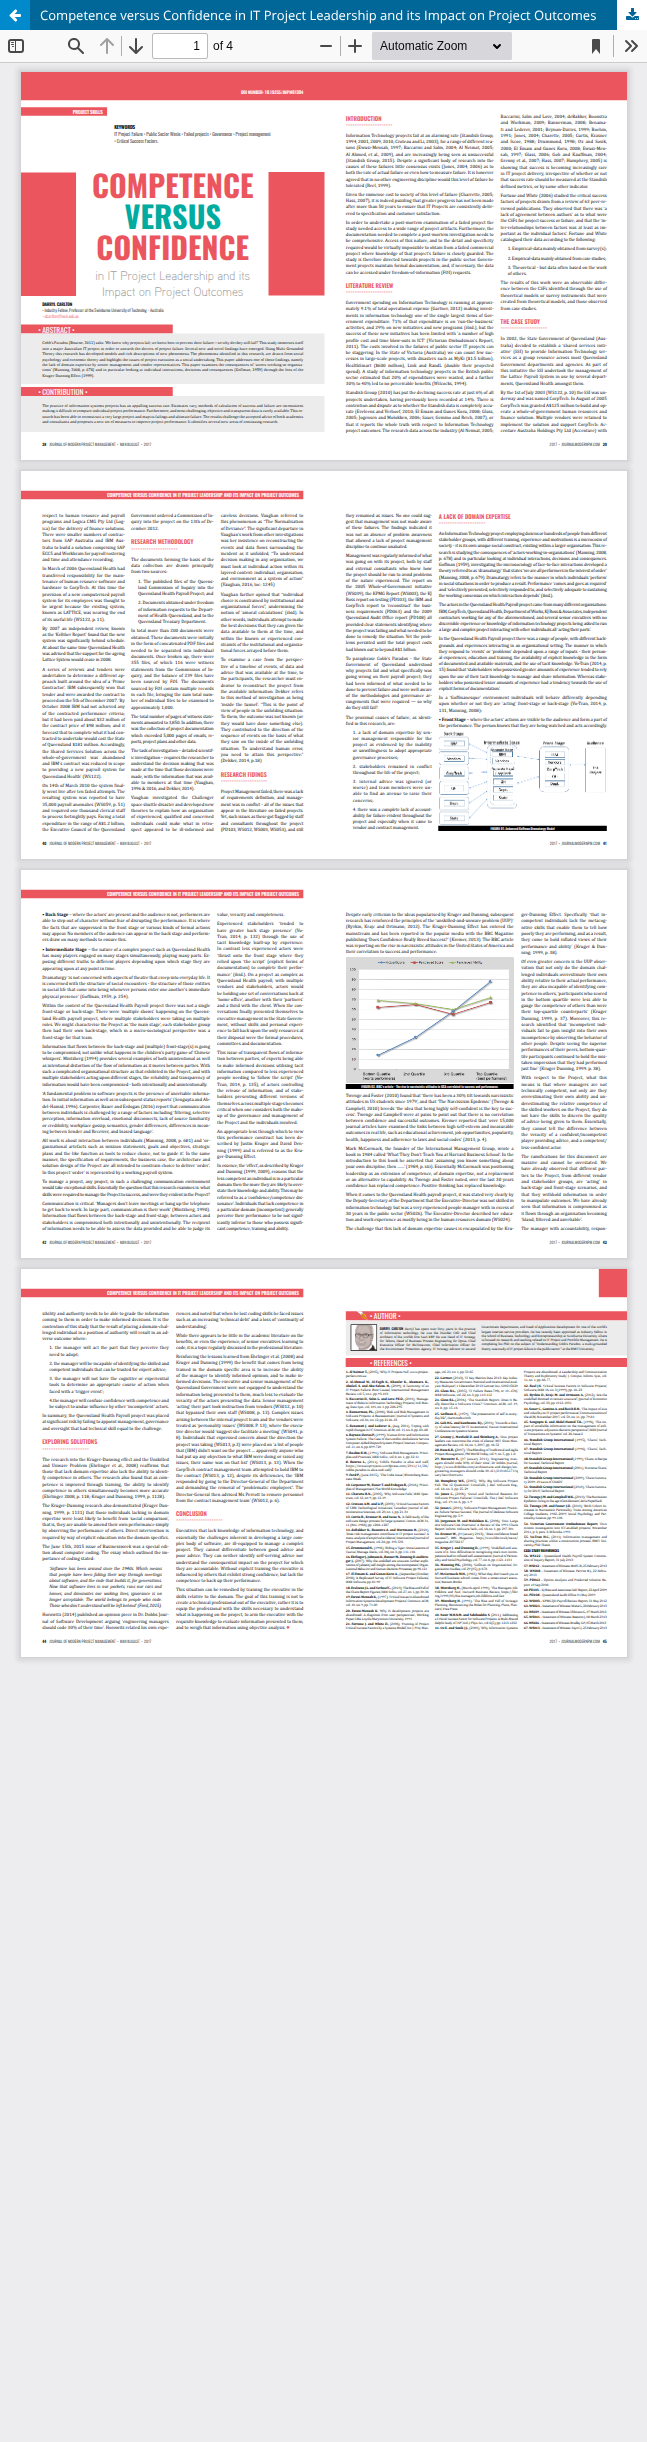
<svg xmlns="http://www.w3.org/2000/svg" width="647" height="2442">
<style>
.a{font:13px Open Sans;fill:#fff}
</style>
<rect width="100%" height="100%" fill="#fff"/>
<path fill="#006798" d="M30 0h587v30H30z"/>
<path fill="#008acb" d="M0 0h30v30H0z"/>
<image href="1.png" x="9" y="9" width="12" height="13"/>
<image href="2.png" x="626" y="8" width="13" height="12"/>
<image href="3.png" x="0" y="30" width="647" height="2412"/>
<text class="a" x="40" y="20">Competence versus Confidence in IT Project Leadership and its Impact on Project Outcomes</text>
</svg>
